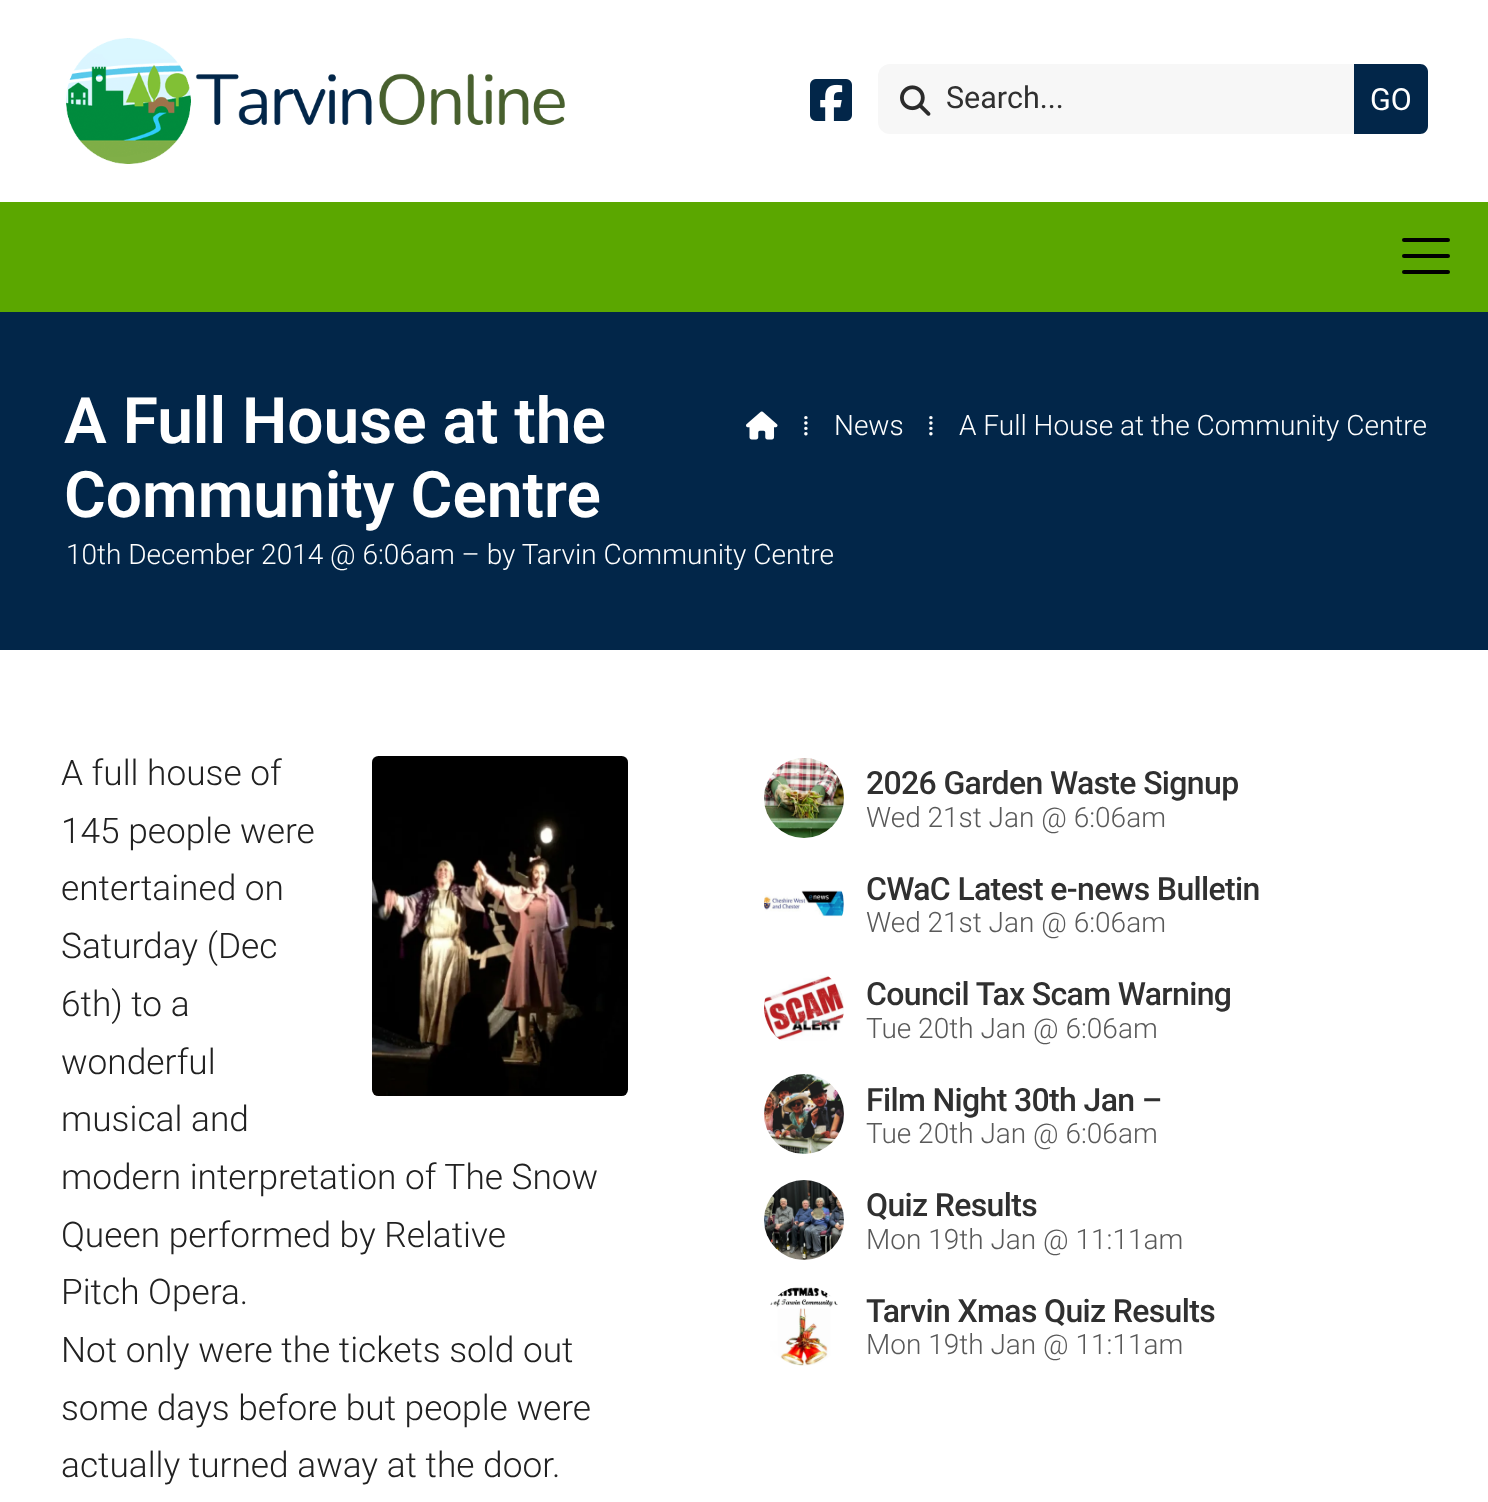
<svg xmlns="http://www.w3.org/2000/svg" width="1488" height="1502">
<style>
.a{font:30.5px Roboto;fill:#303030}
.b{font:30.5px Roboto;fill:#fff}
.c{font:600 64px Roboto;fill:#fff}
.d{font:28px Liberation Serif;fill:#fff}
.e{font:300 28px Roboto;fill:#fff}
.f{font:300 35.25px Roboto;fill:#212121}
.g{font:500 32px Roboto;letter-spacing:-0.65px;fill:#303030}
.h{font:300 28px Roboto;fill:#595959}
</style>
<rect width="100%" height="100%" fill="#fff"/>
<image href="1.png" x="66" y="38" width="499" height="126"/>
<image href="2.png" x="810" y="79" width="42" height="42"/>
<rect fill="#f7f7f7" x="878" y="64" width="550" height="70" rx="12"/>
<image href="3.png" x="900" y="85" width="31" height="31"/>
<path fill="#022649" d="M1354 64h66c4.5 0 8 3.5 8 8v54c0 4.5-3.5 8-8 8h-66z"/>
<path fill="#5ba700" d="M0 202h1488v110H0z"/>
<rect fill="#000" x="1402" y="238" width="48" height="4" rx="2"/>
<rect fill="#000" x="1402" y="254" width="48" height="4" rx="2"/>
<rect fill="#000" x="1402" y="270" width="48" height="4" rx="2"/>
<path fill="#022649" d="M0 312h1488v338H0z"/>
<image href="4.png" x="746" y="411" width="32" height="29"/>
<image href="5.png" x="372" y="756" width="256" height="340"/>
<image href="6.png" x="764" y="758" width="80" height="80"/>
<image href="7.png" x="764" y="890" width="80" height="27"/>
<image href="8.png" x="764" y="975" width="80" height="66"/>
<image href="9.png" x="764" y="1074" width="80" height="80"/>
<image href="10.png" x="764" y="1180" width="80" height="80"/>
<image href="11.png" x="770" y="1287" width="68" height="79"/>
<text class="a" x="946" y="108">Search...</text>
<text class="b" x="1370" y="110">GO</text>
<text class="c" x="64" y="443">A Full House at the</text>
<text class="c" x="64" y="517">Community Centre</text>
<text class="d" x="802" y="435">⁞</text>
<text class="e" x="834" y="435">News</text>
<text class="d" x="927" y="435">⁞</text>
<text class="e" x="959" y="435">A Full House at the Community Centre</text>
<text class="e" x="66" y="564">10th December 2014 @ 6:06am – by Tarvin Community Centre</text>
<text class="f" x="61" y="785">A full house of</text>
<text class="f" x="61" y="843">145 people were</text>
<text class="f" x="61" y="900">entertained on</text>
<text class="f" x="61" y="958">Saturday (Dec</text>
<text class="f" x="61" y="1016">6th) to a</text>
<text class="f" x="61" y="1074">wonderful</text>
<text class="f" x="61" y="1131">musical and</text>
<text class="f" x="61" y="1189">modern interpretation of The Snow</text>
<text class="f" x="61" y="1247">Queen performed by Relative</text>
<text class="f" x="61" y="1304">Pitch Opera.</text>
<text class="f" x="61" y="1362">Not only were the tickets sold out</text>
<text class="f" x="61" y="1420">some days before but people were</text>
<text class="f" x="61" y="1477">actually turned away at the door.</text>
<text class="g" x="866" y="794">2026 Garden Waste Signup</text>
<text class="h" x="866" y="827">Wed 21st Jan @ 6:06am</text>
<text class="g" x="866" y="900">CWaC Latest e-news Bulletin</text>
<text class="h" x="866" y="932">Wed 21st Jan @ 6:06am</text>
<text class="g" x="866" y="1005">Council Tax Scam Warning</text>
<text class="h" x="866" y="1038">Tue 20th Jan @ 6:06am</text>
<text class="g" x="866" y="1111">Film Night 30th Jan –</text>
<text class="h" x="866" y="1143">Tue 20th Jan @ 6:06am</text>
<text class="g" x="866" y="1216">Quiz Results</text>
<text class="h" x="866" y="1249">Mon 19th Jan @ 11:11am</text>
<text class="g" x="866" y="1322">Tarvin Xmas Quiz Results</text>
<text class="h" x="866" y="1354">Mon 19th Jan @ 11:11am</text>
</svg>
